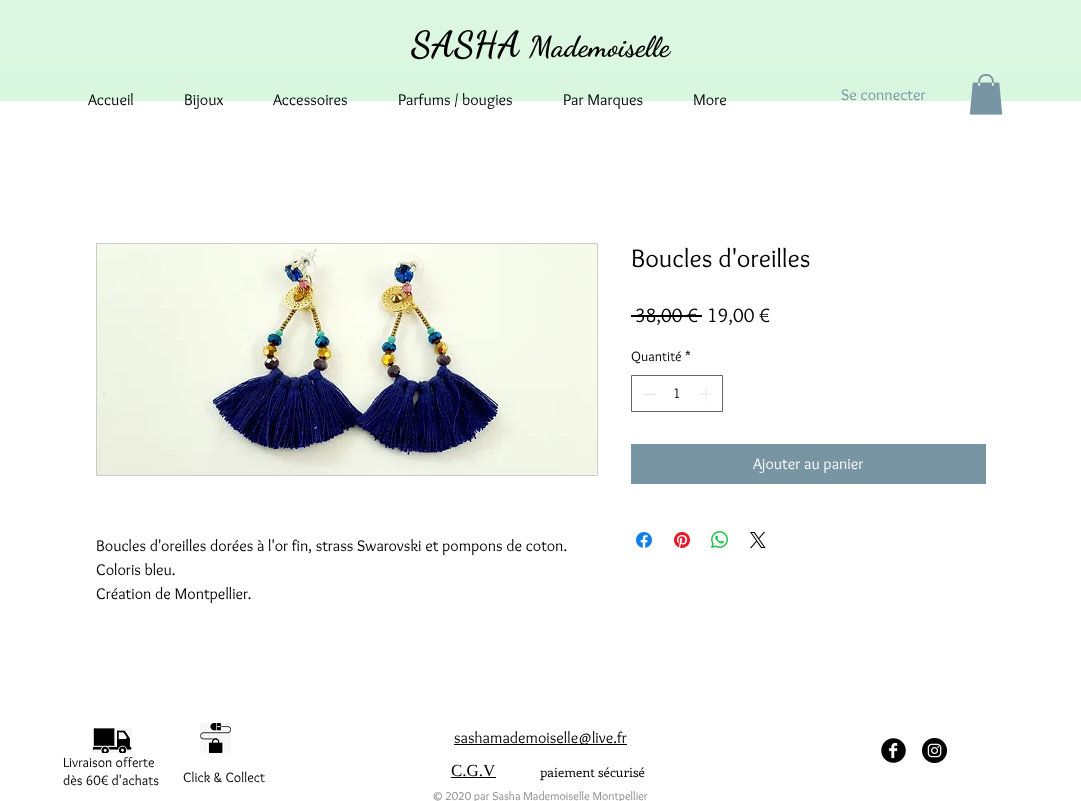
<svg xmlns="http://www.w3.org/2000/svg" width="1081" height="801">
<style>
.a{font:bold 36px Dancing Script;fill:#000}
.b{font:bold 29px Dancing Script;fill:#000}
.c{font:16px Overlock;fill:#000}
.d{font:16px Overlock;fill:#7795a3}
.e{font:26px Overlock;fill:#000}
.f{font:20px Overlock;fill:#000}
.g{font:14px Overlock;fill:#000}
.h{font:16px Overlock;fill:#fff}
.i{font:17px Liberation Serif;fill:#000}
.j{font:13px Enriqueta;fill:#000}
.k{font:12px Overlock;fill:#8b8a8a}
</style>
<rect width="100%" height="100%" fill="#fff"/>
<path fill="#d2f5d9" d="M0 0h1081v101H0z"/>
<image href="1.png" x="0" y="0" width="1081" height="101"/>
<image href="2.png" x="969" y="74" width="34" height="41"/>
<path fill="#000" d="M631 315h71v2H631z"/>
<path fill="none" stroke="#666" d="M631.5 375.5h91v36H631.5z"/>
<path fill="#e3e3e3" d="M643 394h13v1H643z"/>
<image href="3.png" x="699" y="387" width="14" height="14"/>
<path fill="#7795a3" d="M631 444h355v40H631z"/>
<image href="4.png" x="636" y="532" width="16" height="16"/>
<image href="5.png" x="674" y="532" width="16" height="16"/>
<image href="6.png" x="711" y="531" width="17" height="17"/>
<image href="7.png" x="750" y="532" width="16" height="16"/>
<path fill="none" stroke="#ccc" d="M96.5 243.5h501v232H96.5z"/>
<image href="8.png" x="97" y="244" width="500" height="231"/>
<image href="9.png" x="92" y="728" width="40" height="25"/>
<image href="10.png" x="200" y="723" width="31" height="30"/>
<path fill="#000" d="M454 744h173v1H454z"/>
<image href="11.png" x="881" y="738" width="25" height="25"/>
<image href="12.png" x="922" y="738" width="25" height="25"/>
<path fill="#000" d="M451 777h45v1H451z"/>
<text class="a" x="411" y="56">SASHA</text>
<text class="b" x="529" y="56">Mademoiselle</text>
<text class="c" x="88" y="105">Accueil</text>
<text class="c" x="184" y="105">Bijoux</text>
<text class="c" x="273" y="105">Accessoires</text>
<text class="c" x="398" y="105">Parfums / bougies</text>
<text class="c" x="563" y="105">Par Marques</text>
<text class="c" x="693" y="105">More</text>
<text class="d" x="841" y="100">Se connecter</text>
<text class="e" x="631" y="267">Boucles d'oreilles</text>
<text class="f" x="635" y="322">38,00 €</text>
<text class="f" x="707" y="322">19,00 €</text>
<text class="g" x="631" y="361">Quantité</text>
<text class="g" x="685" y="361">*</text>
<text class="g" x="673" y="398">1</text>
<text class="h" x="753" y="469">Ajouter au panier</text>
<text class="c" x="96" y="551">Boucles d'oreilles dorées à l'or fin, strass Swarovski et pompons de coton.</text>
<text class="c" x="96" y="575">Coloris bleu.</text>
<text class="c" x="96" y="599">Création de Montpellier.</text>
<text class="c" x="454" y="743">sashamademoiselle@live.fr</text>
<text class="g" x="63" y="767">Livraison offerte</text>
<text class="g" x="63" y="785">dès 60€ d'achats</text>
<text class="g" x="183" y="782">Click &amp; Collect</text>
<text class="i" x="451" y="776">C.G.V</text>
<text class="j" x="540" y="777">paiement sécurisé</text>
<text class="k" x="432" y="800">© 2020 par Sasha Mademoiselle Montpellier</text>
</svg>
